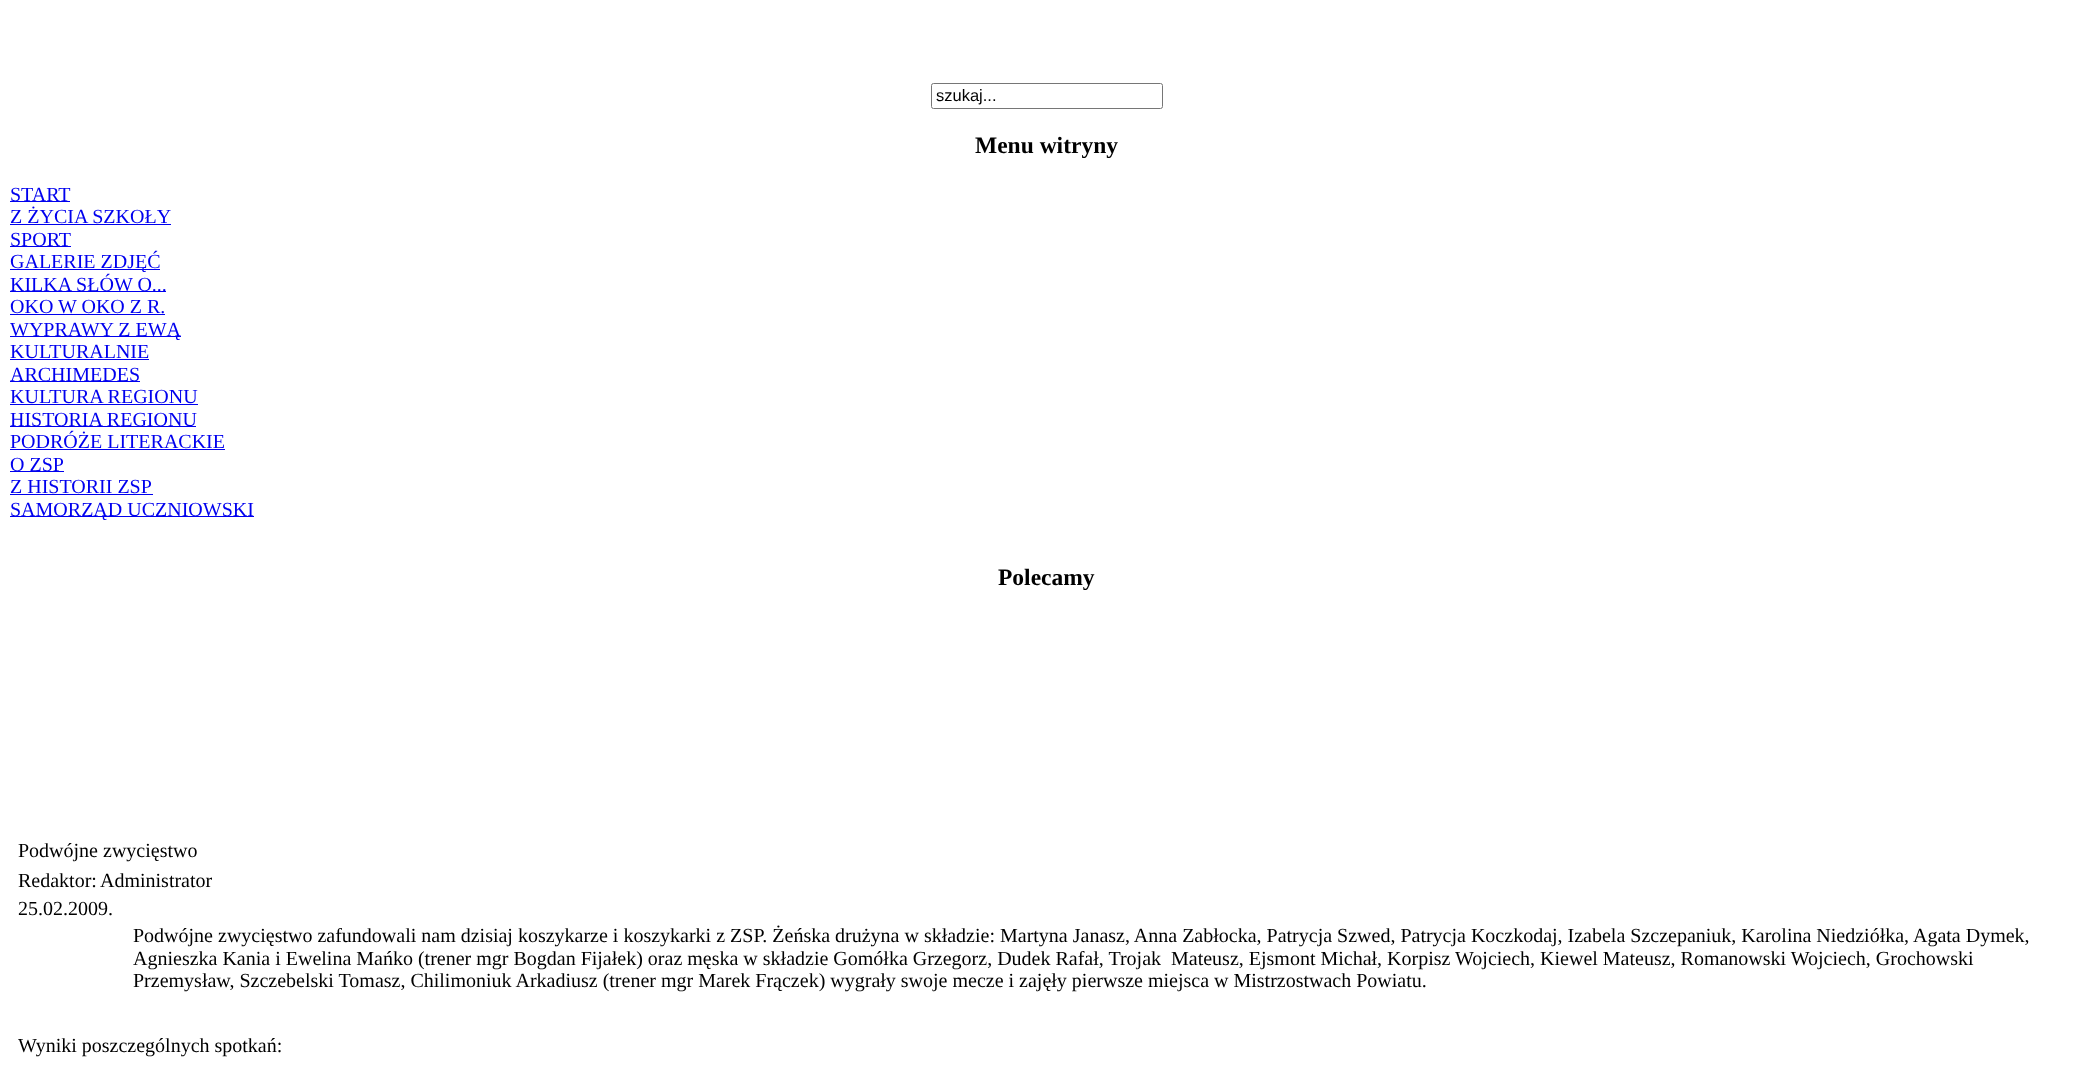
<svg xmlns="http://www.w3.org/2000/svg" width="2092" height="1083">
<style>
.a{font:16.5px Liberation Sans;fill:#000}
.b{font:bold 23.5px Liberation Serif;fill:#000}
.c{font:20px Liberation Serif;fill:#00e}
.d{font:20px Liberation Serif;fill:#000}
</style>
<rect width="100%" height="100%" fill="#fff"/>
<rect fill="none" stroke="#767676" x="931.5" y="83.5" width="231" height="25" rx="2"/>
<path fill="#00e" d="M10 201h60v1H10z"/>
<path fill="#00e" d="M10 224h161v1H10z"/>
<path fill="#00e" d="M10 246h61v1H10z"/>
<path fill="#00e" d="M10 269h150v1H10z"/>
<path fill="#00e" d="M10 291h156v1H10z"/>
<path fill="#00e" d="M10 314h155v1H10z"/>
<path fill="#00e" d="M10 336h171v1H10z"/>
<path fill="#00e" d="M10 359h139v1H10z"/>
<path fill="#00e" d="M10 381h130v1H10z"/>
<path fill="#00e" d="M10 404h188v1H10z"/>
<path fill="#00e" d="M10 426h186v1H10z"/>
<path fill="#00e" d="M10 449h215v1H10z"/>
<path fill="#00e" d="M10 471h54v1H10z"/>
<path fill="#00e" d="M10 494h143v1H10z"/>
<path fill="#00e" d="M10 516h244v1H10z"/>
<text class="a" x="936" y="101">szukaj...</text>
<text class="b" x="975" y="153">Menu witryny</text>
<text class="c" x="10" y="201">START</text>
<text class="c" x="10" y="223">Z ŻYCIA SZKOŁY</text>
<text class="c" x="10" y="246">SPORT</text>
<text class="c" x="10" y="268">GALERIE ZDJĘĆ</text>
<text class="c" x="10" y="291">KILKA SŁÓW O...</text>
<text class="c" x="10" y="313">OKO W OKO Z R.</text>
<text class="c" x="10" y="336">WYPRAWY Z EWĄ</text>
<text class="c" x="10" y="358">KULTURALNIE</text>
<text class="c" x="10" y="381">ARCHIMEDES</text>
<text class="c" x="10" y="403">KULTURA REGIONU</text>
<text class="c" x="10" y="426">HISTORIA REGIONU</text>
<text class="c" x="10" y="448">PODRÓŻE LITERACKIE</text>
<text class="c" x="10" y="471">O ZSP</text>
<text class="c" x="10" y="493">Z HISTORII ZSP</text>
<text class="c" x="10" y="516">SAMORZĄD UCZNIOWSKI</text>
<text class="b" x="998" y="585">Polecamy</text>
<text class="d" x="18" y="857">Podwójne zwycięstwo</text>
<text class="d" x="18" y="887">Redaktor:</text>
<text class="d" x="100" y="887">Administrator</text>
<text class="d" x="18" y="915">25.02.2009.</text>
<text class="d" x="133" y="942">Podwójne zwycięstwo zafundowali nam dzisiaj koszykarze i koszykarki z ZSP. Żeńska drużyna w składzie: Martyna Janasz, Anna Zabłocka, Patrycja Szwed, Patrycja Koczkodaj, Izabela Szczepaniuk, Karolina Niedziółka, Agata Dymek,</text>
<text class="d" xml:space="preserve" x="133" y="965">Agnieszka Kania i Ewelina Mańko (trener mgr Bogdan Fijałek) oraz męska w składzie Gomółka Grzegorz, Dudek Rafał, Trojak  Mateusz, Ejsmont Michał, Korpisz Wojciech, Kiewel Mateusz, Romanowski Wojciech, Grochowski</text>
<text class="d" x="133" y="987">Przemysław, Szczebelski Tomasz, Chilimoniuk Arkadiusz (trener mgr Marek Frączek) wygrały swoje mecze i zajęły pierwsze miejsca w Mistrzostwach Powiatu.</text>
<text class="d" x="18" y="1052">Wyniki poszczególnych spotkań:</text>
</svg>
